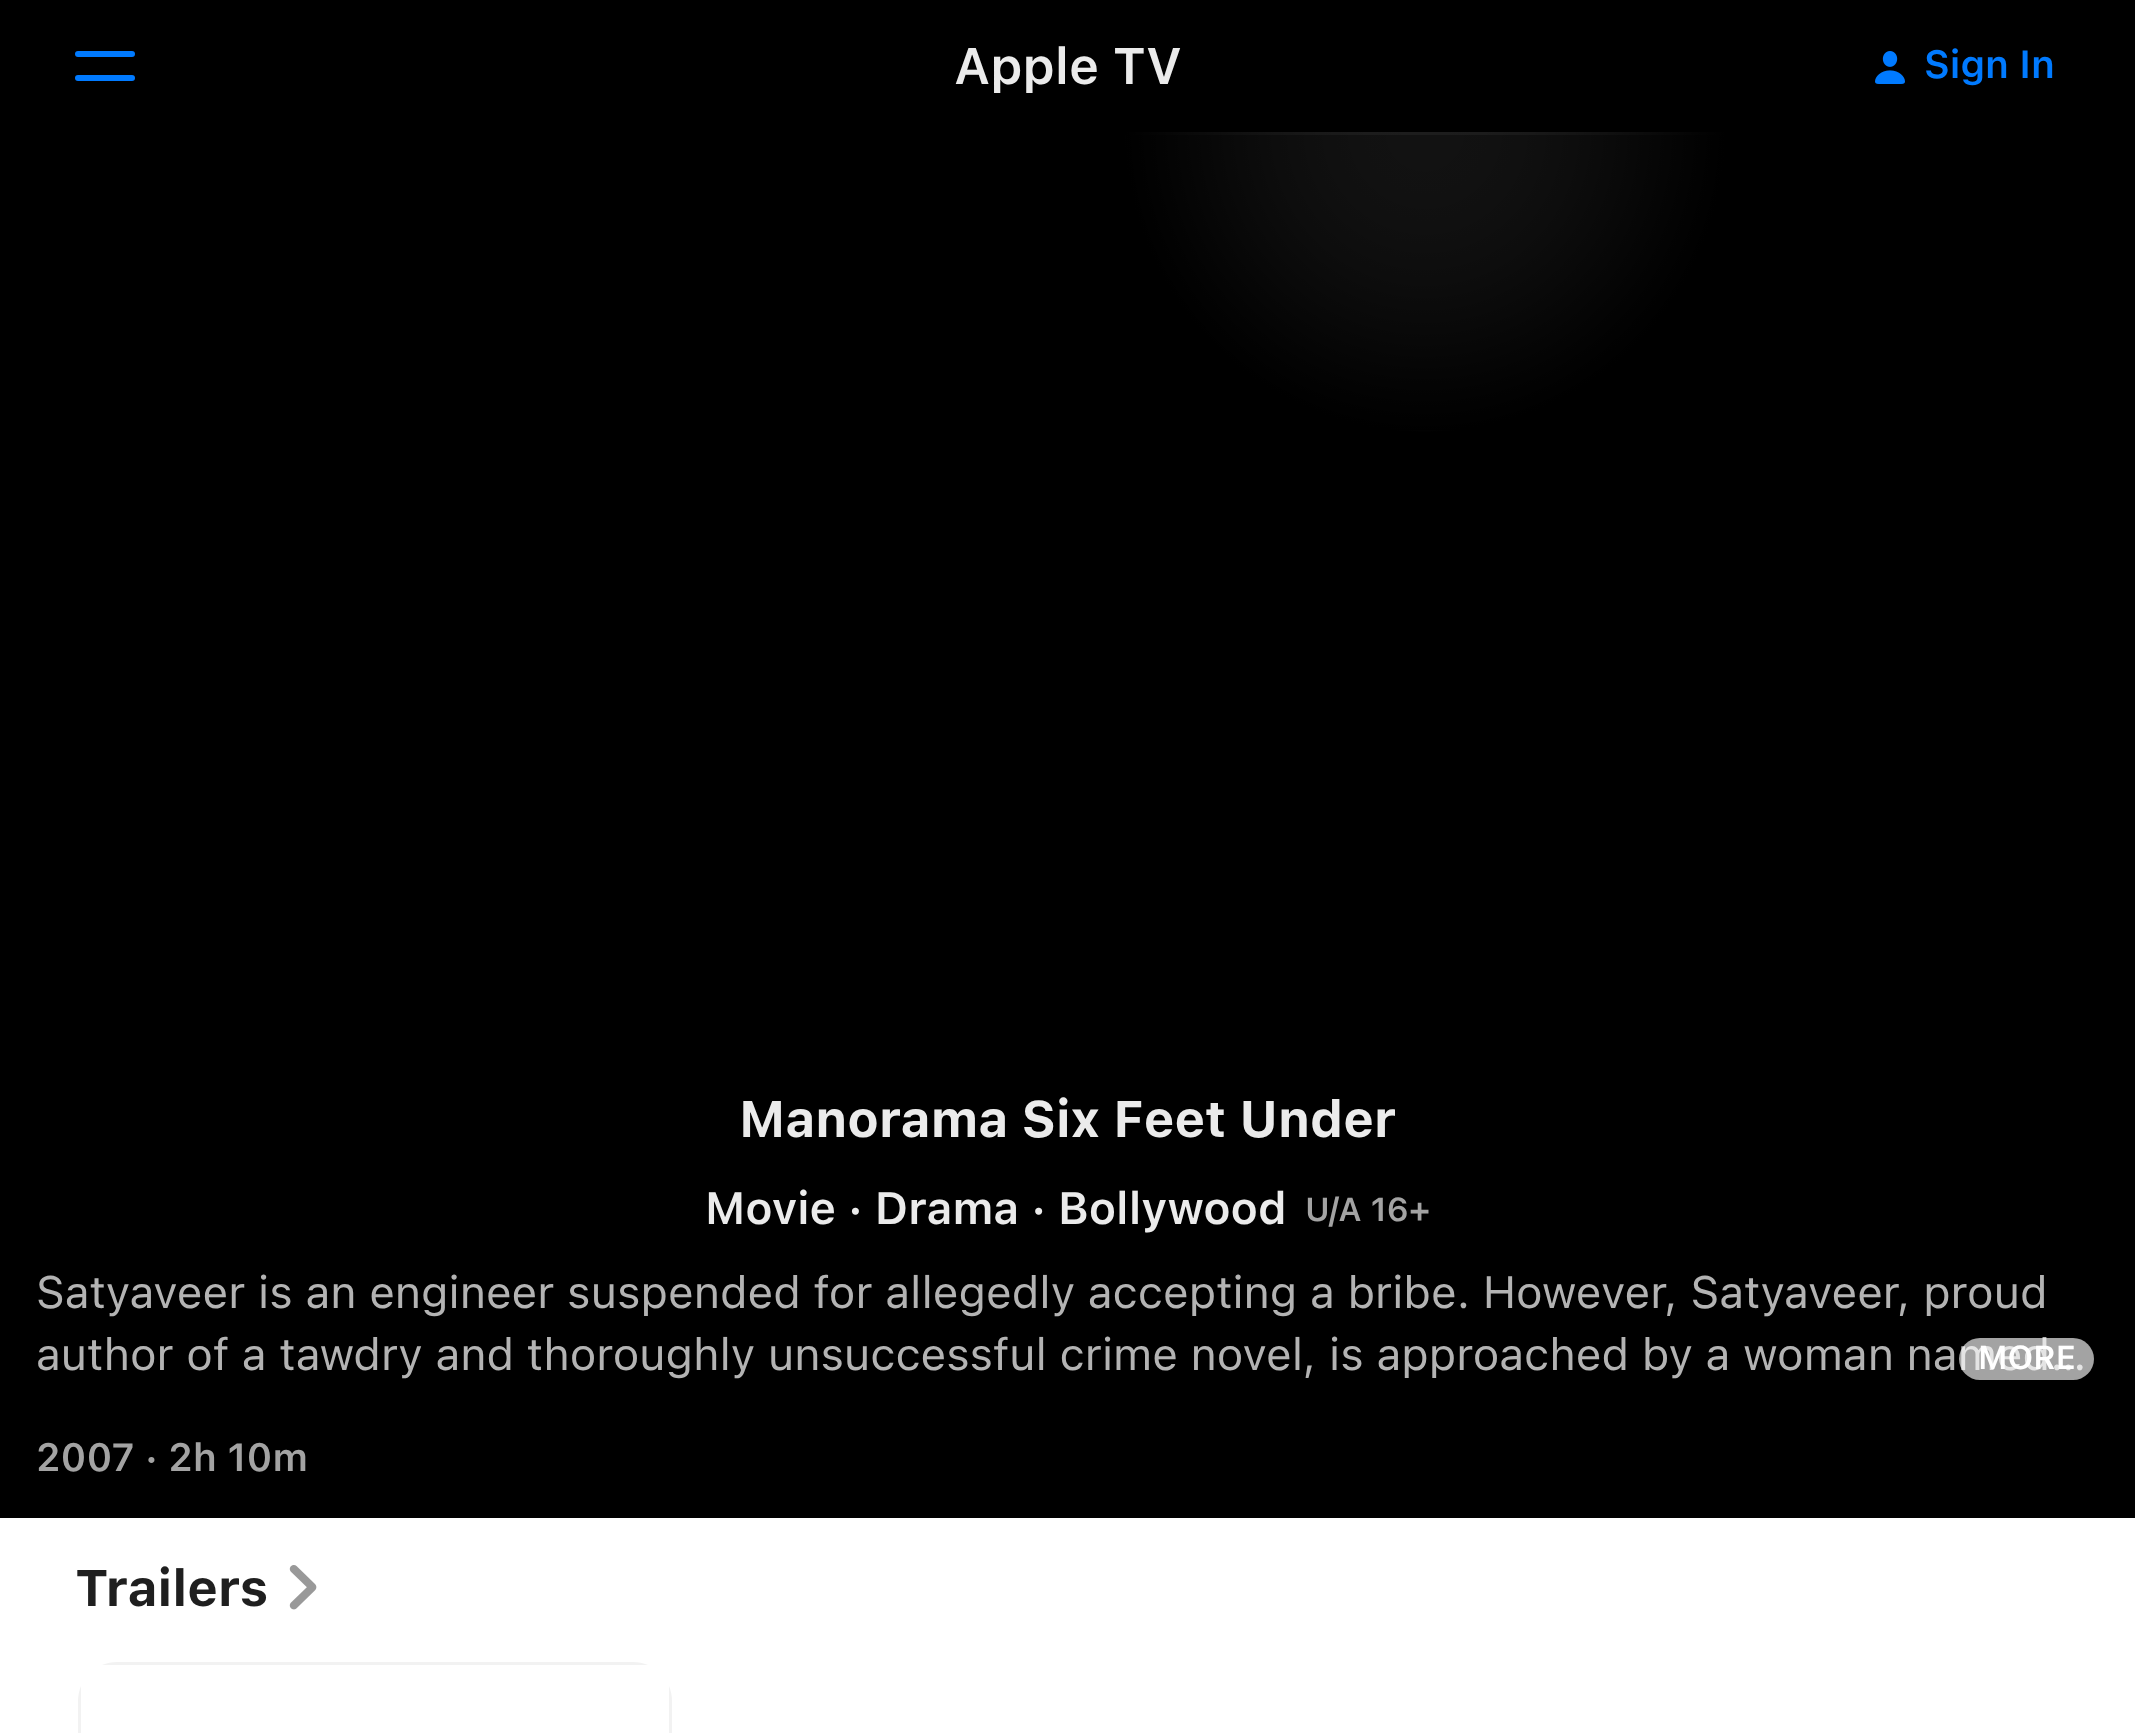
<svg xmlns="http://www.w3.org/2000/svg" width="2135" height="1733">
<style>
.a{font:600 51px SF;fill:#ebebeb}
.b{font:600 39px SF;fill:#007aff}
.c{font:bold 51px SF;fill:#ebebeb}
.d{font:600 45px SF;fill:#ebebeb}
.e{font:600 33px SF;fill:#a3a3a3}
.f{font:45px SF;fill:#b3b3b3}
.g{font:600 33px SF;fill:#fff}
.h{font:600 39px SF;fill:#a3a3a3}
.i{font:bold 51px SF;fill:#1f1f1f}
</style>
<defs>
<clipPath id="clip1"><path d="M0 132h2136v1386H0z"/></clipPath>
<radialGradient id="g1" gradientUnits="userSpaceOnUse" cx="1425" cy="132" r="300"><stop offset="0" stop-color="#000" stop-opacity="0"/><stop offset="0.19" stop-color="#000" stop-opacity="0.04"/><stop offset="0.36" stop-color="#000" stop-opacity="0.15"/><stop offset="0.51" stop-color="#000" stop-opacity="0.3"/><stop offset="0.53" stop-color="#000" stop-opacity="0.33"/><stop offset="0.65" stop-color="#000" stop-opacity="0.49"/><stop offset="0.77" stop-color="#000" stop-opacity="0.67"/><stop offset="0.89" stop-color="#000" stop-opacity="0.85"/><stop offset="1" stop-color="#000"/></radialGradient>
</defs>
<rect width="100%" height="100%" fill="#fff"/>
<path fill="#000" d="M0 0h2135v132H0z"/>
<rect fill="#007aff" x="75" y="51" width="60" height="6" rx="3"/>
<rect fill="#007aff" x="75" y="75" width="60" height="6" rx="3"/>
<image href="1.png" x="1875" y="51" width="30" height="33"/>
<path fill="#121212" d="M1126 135h599v295H1126z"/>
<g clip-path="url(#clip1)">
<path fill="none" stroke="#1d1d1d" stroke-width="3" d="M1.5 133.5h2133v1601H1.5z"/>
</g>
<path fill="url(#g1)" d="M0 132h2135v1386H0z"/>
<image href="2.png" x="289" y="1565" width="28" height="45"/>
<path fill="#f2f2f2" fill-rule="evenodd" d="M78 1701v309c0 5 1 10 3 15v-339c-2 5-3 10-3 15zm39-39c-5 0-10 1-15 3h546c-5-2-10-3-15-3zm555 39c0-5-1-10-3-15v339c2-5 3-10 3-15zm-39 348c5 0 10-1 15-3h-546c5 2 10 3 15 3z"/>
<text class="a" x="954" y="84">Apple TV</text>
<text class="b" x="1924" y="78">Sign In</text>
<text class="c" x="739" y="1137">Manorama Six Feet Under</text>
<text class="d" x="705" y="1224">Movie · Drama · Bollywood</text>
<text class="e" x="1305" y="1221">U/A 16+</text>
<text class="f" x="36" y="1308">Satyaveer is an engineer suspended for allegedly accepting a bribe. However, Satyaveer, proud</text>
<text class="f" x="36" y="1370">author of a tawdry and thoroughly unsuccessful crime novel, is approached by a woman named…</text>
<rect fill="#ffffffa3" x="1959" y="1338" width="135" height="42" rx="21"/>
<text class="g" x="1978" y="1369">MORE</text>
<text class="h" x="36" y="1471">2007 · 2h 10m</text>
<text class="i" x="75" y="1606">Trailers</text>
</svg>
